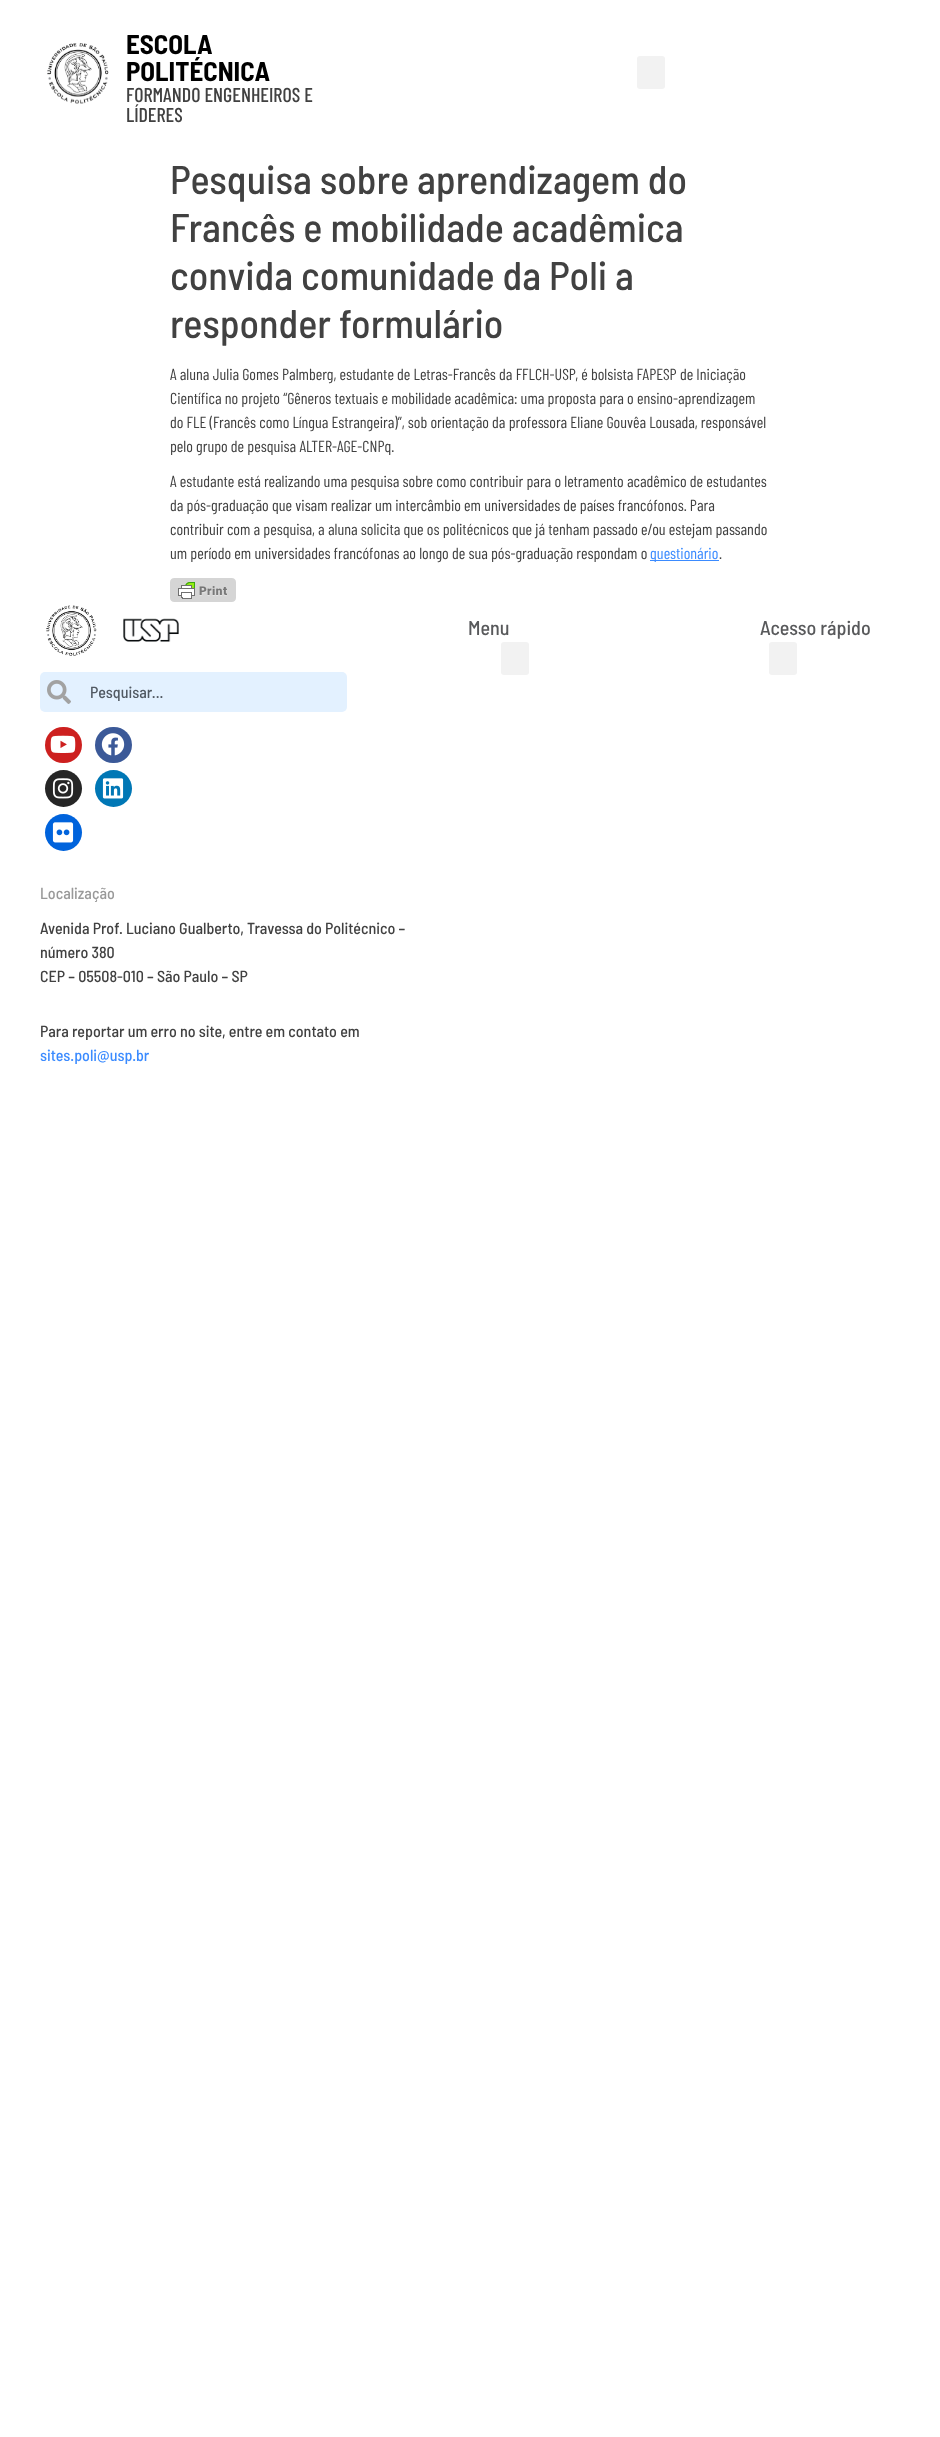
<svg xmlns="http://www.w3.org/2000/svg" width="940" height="2437">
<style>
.a{font:bold 27px Barlow Semi Condensed;fill:#000}
.b{font:500 20px Barlow Condensed;fill:#414141}
.c{font:500 40px Barlow Semi Condensed;fill:#414141}
.d{font:16px Barlow Condensed;fill:#414141}
.e{font:16px Barlow Condensed;fill:#3b8bff}
.f{font:500 20px Barlow Semi Condensed;fill:#58595b}
.g{font:500 16px Barlow Semi Condensed;fill:#515962}
.h{font:500 16px Barlow Semi Condensed;fill:#999}
.i{font:500 16px Barlow Semi Condensed;fill:#414141}
.j{font:500 16px Barlow Semi Condensed;fill:#3b8bff}
</style>
<rect width="100%" height="100%" fill="#fff"/>
<image href="1.png" x="47" y="43" width="62" height="61"/>
<rect fill="#f2f2f2" x="637" y="56" width="28" height="33" rx="3"/>
<path fill="#3b8bff" d="M650 560h69v1H650z"/>
<image href="2.png" x="170" y="578" width="66" height="24"/>
<rect fill="#f2f2f2" x="501" y="642" width="28" height="33" rx="3"/>
<rect fill="#f2f2f2" x="769" y="642" width="28" height="33" rx="3"/>
<image href="3.png" x="46" y="605" width="51" height="51"/>
<image href="4.png" x="123" y="618" width="56" height="24"/>
<rect fill="#e3f1ff" x="40" y="672" width="307" height="40" rx="5"/>
<image href="5.png" x="47" y="680" width="24" height="24"/>
<rect fill="#cd201f" x="45" y="727" width="37" height="36" rx="18"/>
<image href="6.png" x="50" y="735" width="26" height="18"/>
<rect fill="#3b5998" x="95" y="727" width="37" height="36" rx="18"/>
<image href="7.png" x="101" y="733" width="24" height="23"/>
<circle fill="#262626" cx="63.5" cy="788.5" r="18.5"/>
<image href="8.png" x="52" y="778" width="22" height="21"/>
<circle fill="#0077b5" cx="113.5" cy="788.5" r="18.5"/>
<image href="9.png" x="102" y="778" width="22" height="21"/>
<circle fill="#0063dc" cx="63.5" cy="832.5" r="18.5"/>
<image href="10.png" x="52" y="822" width="22" height="21"/>
<text class="a" x="126" y="54">ESCOLA</text>
<text class="a" x="126" y="81">POLITÉCNICA</text>
<text class="b" x="126" y="102">FORMANDO ENGENHEIROS E</text>
<text class="b" x="126" y="122">LÍDERES</text>
<text class="c" x="170" y="194">Pesquisa sobre aprendizagem do</text>
<text class="c" x="170" y="242">Francês e mobilidade acadêmica</text>
<text class="c" x="170" y="290">convida comunidade da Poli a</text>
<text class="c" x="170" y="338">responder formulário</text>
<text class="d" x="170" y="380">A aluna Julia Gomes Palmberg, estudante de Letras-Francês da FFLCH-USP, é bolsista FAPESP de Iniciação</text>
<text class="d" x="170" y="404">Científica no projeto “Gêneros textuais e mobilidade acadêmica: uma proposta para o ensino-aprendizagem</text>
<text class="d" x="170" y="428">do FLE (Francês como Língua Estrangeira)”, sob orientação da professora Eliane Gouvêa Lousada, responsável</text>
<text class="d" x="170" y="452">pelo grupo de pesquisa ALTER-AGE-CNPq.</text>
<text class="d" x="170" y="487">A estudante está realizando uma pesquisa sobre como contribuir para o letramento acadêmico de estudantes</text>
<text class="d" x="170" y="511">da pós-graduação que visam realizar um intercâmbio em universidades de países francófonos. Para</text>
<text class="d" x="170" y="535">contribuir com a pesquisa, a aluna solicita que os politécnicos que já tenham passado e/ou estejam passando</text>
<text class="d" x="170" y="559">um período em universidades francófonas ao longo de sua pós-graduação respondam o</text>
<text class="e" x="650" y="559">questionário</text>
<text class="d" x="719" y="559">.</text>
<text class="f" x="468" y="635">Menu</text>
<text class="f" x="760" y="635">Acesso rápido</text>
<text class="g" x="90" y="698">Pesquisar...</text>
<text class="h" x="40" y="899">Localização</text>
<text class="i" x="40" y="934">Avenida Prof. Luciano Gualberto, Travessa do Politécnico –</text>
<text class="i" x="40" y="958">número 380</text>
<text class="i" x="40" y="982">CEP – 05508-010 – São Paulo – SP</text>
<text class="i" x="40" y="1037">Para reportar um erro no site, entre em contato em</text>
<text class="j" x="40" y="1061">sites.poli@usp.br</text>
</svg>
